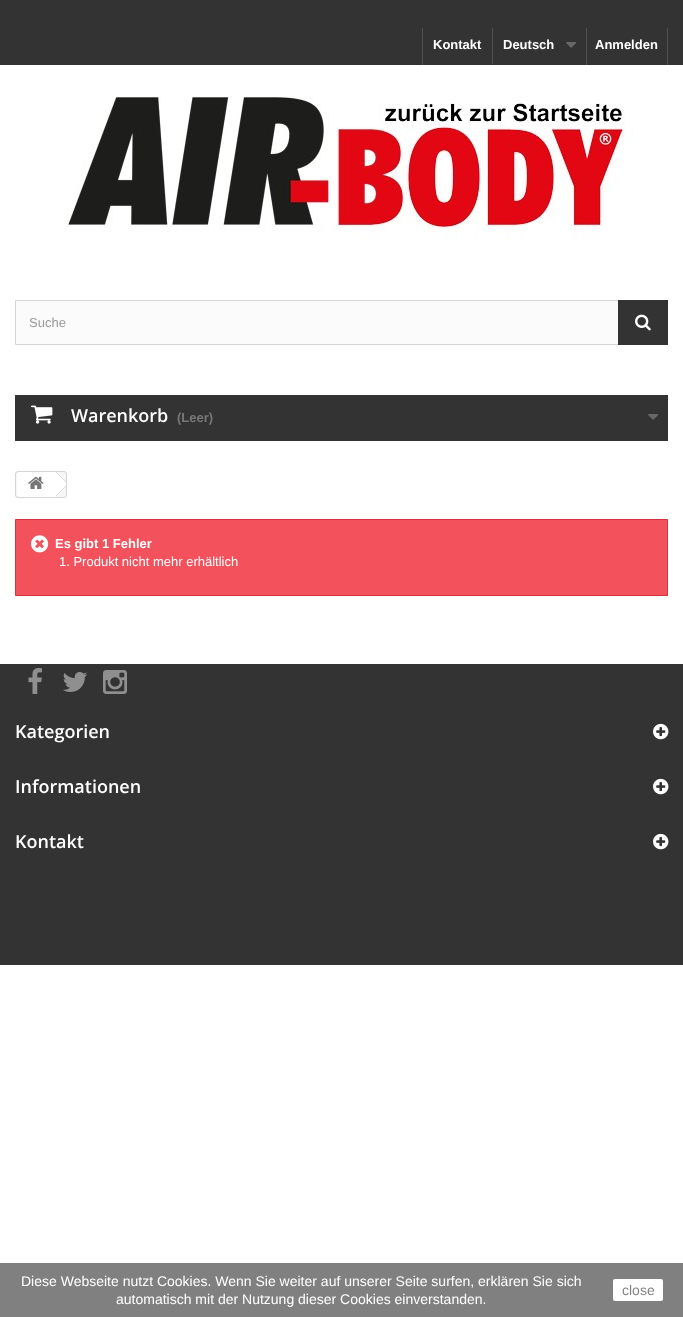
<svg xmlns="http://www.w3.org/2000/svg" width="683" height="1317">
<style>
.a{font:bold 13px Liberation Sans;fill:#fff}
.b{font:13px Liberation Sans;fill:#999}
.c{font:600 18px Open Sans;fill:#fff}
.d{font:bold 13px Liberation Sans;fill:#777}
.e{font:13px Liberation Sans;fill:#fff}
.f{font:14px Liberation Sans;fill:#fff}
.g{font:14px Liberation Sans;fill:#848484}
</style>
<rect width="100%" height="100%" fill="#fff"/>
<path fill="#333" d="M0 0h683v65H0z"/>
<path fill="#515151" d="M422 28h1v37H422z"/>
<path fill="#515151" d="M492 28h1v36H492z"/>
<image href="1.png" x="566" y="42" width="11" height="6"/>
<path fill="#515151" d="M667 28h1v37H667z"/>
<path fill="#515151" d="M586 28h1v37H586z"/>
<image href="2.png" x="67" y="96" width="567" height="144"/>
<path fill="#fbfbfb" d="M16 301h602v43H16z"/>
<path fill="none" stroke="#d6d4d4" d="M15.5 300.5h652v44H15.5z"/>
<path fill="#333" d="M618 300h50v45H618z"/>
<image href="3.png" x="635" y="314" width="16" height="17"/>
<path fill="#333" d="M15 395h653v46H15z"/>
<image href="4.png" x="31" y="405" width="22" height="19"/>
<image href="1.png" x="648" y="414" width="11" height="6"/>
<rect fill="#f6f6f6" stroke="#d6d4d4" x="15.5" y="471.5" width="51" height="26" rx="2.5"/>
<path fill="#fff" d="M20 472h35v25h-35c-1.5 0-3-1.5-3-3v-19c0-1.5 1.5-3 3-3z"/>
<image href="5.png" x="28" y="476" width="16" height="13"/>
<path fill="#fff" d="M57.5 472.5l8.5 8.5v6l-8.5 8.5c-1 .5-2 .5-3 0l-10-10c-.5-1-.5-2 0-3l10-10c1-.5 2-.5 3 0z"/>
<path fill="#d6d4d4" d="M56.5 472l9.5 9.5v1l-10-10zm9.5 13.5v1l-9.5 9.5l-.5-.5z"/>
<path fill="#f3515c" stroke="#d4323d" d="M15.5 519.5h652v76H15.5z"/>
<image href="6.png" x="31" y="535" width="18" height="18"/>
<path fill="#333" d="M0 664h683v301H0z"/>
<image href="7.png" x="28" y="668" width="14" height="26"/>
<image href="8.png" x="63" y="672" width="25" height="20"/>
<image href="9.png" x="103" y="670" width="24" height="24"/>
<image href="10.png" x="653" y="723" width="16" height="17"/>
<image href="10.png" x="653" y="778" width="16" height="17"/>
<image href="10.png" x="653" y="833" width="16" height="17"/>
<path fill="#808080" d="M0 1263h683v54H0z"/>
<rect fill="#fff" x="613" y="1279" width="50" height="22" rx="2"/>
<text class="a" x="433" y="49">Kontakt</text>
<text class="a" x="503" y="49">Deutsch</text>
<text class="a" x="595" y="49">Anmelden</text>
<text class="b" x="29" y="327">Suche</text>
<text class="c" x="71" y="422">Warenkorb</text>
<text class="d" x="177" y="422">(Leer)</text>
<text class="a" x="55" y="548">Es gibt 1 Fehler</text>
<text class="e" x="59" y="566">1. Produkt nicht mehr erhältlich</text>
<text class="c" x="15" y="738">Kategorien</text>
<text class="c" x="15" y="793">Informationen</text>
<text class="c" x="15" y="848">Kontakt</text>
<text class="f" x="21" y="1286">Diese Webseite nutzt Cookies. Wenn Sie weiter auf unserer Seite surfen, erklären Sie sich</text>
<text class="f" x="116" y="1304">automatisch mit der Nutzung dieser Cookies einverstanden.</text>
<text class="g" x="622" y="1295">close</text>
</svg>
